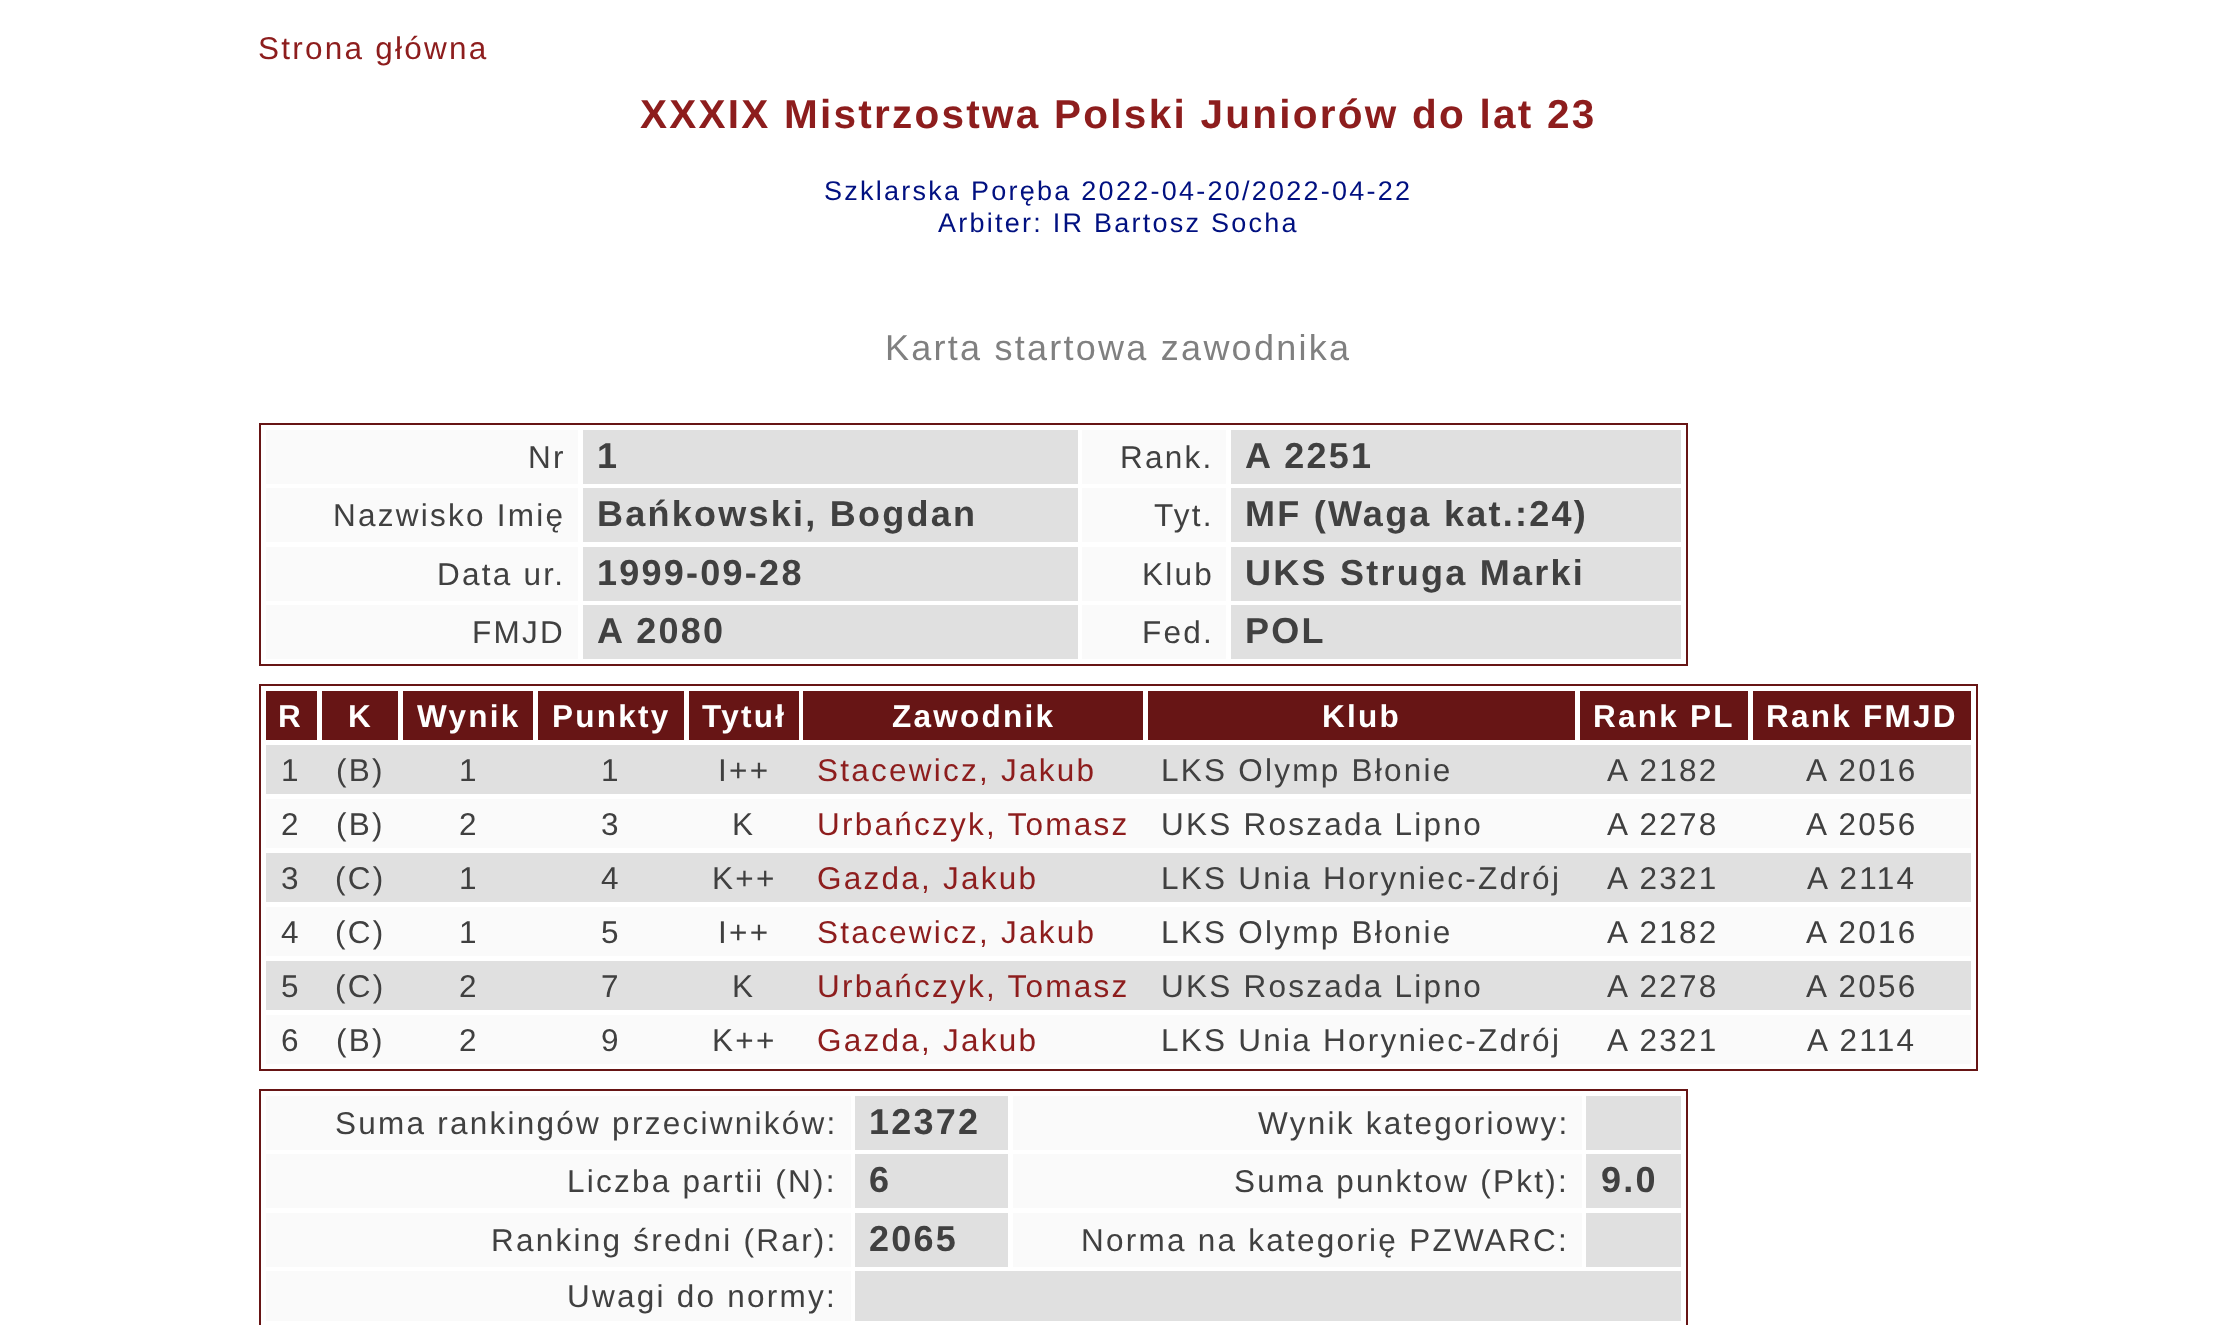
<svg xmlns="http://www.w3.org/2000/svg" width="2236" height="1325">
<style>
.a{font:31.5px Liberation Sans;letter-spacing:2.25px;fill:#8d1d1d}
.b{font:bold 40.5px Liberation Sans;letter-spacing:2.25px;fill:#8d1d1d}
.c{font:27px Liberation Sans;letter-spacing:2.25px;fill:#001080}
.d{font:36px Liberation Sans;letter-spacing:2.25px;fill:#808080}
.e{font:31.5px Liberation Sans;letter-spacing:2.25px;fill:#404040}
.f{font:bold 36px Liberation Sans;letter-spacing:2.25px;fill:#404040}
.g{font:bold 31.5px Liberation Sans;letter-spacing:2.25px;fill:#fff}
</style>
<rect width="100%" height="100%" fill="#fff"/>
<path fill="none" stroke="#671515" stroke-width="2" d="M260 424h1427v241H260z"/>
<path fill="#fafafa" d="M266 430h312v54H266z"/>
<path fill="#e0e0e0" d="M583 430h495v54H583z"/>
<path fill="#fafafa" d="M1082 430h144v54H1082z"/>
<path fill="#e0e0e0" d="M1231 430h450v54H1231z"/>
<path fill="#fafafa" d="M266 488h312v54H266z"/>
<path fill="#e0e0e0" d="M583 488h495v54H583z"/>
<path fill="#fafafa" d="M1082 488h144v54H1082z"/>
<path fill="#e0e0e0" d="M1231 488h450v54H1231z"/>
<path fill="#fafafa" d="M266 547h312v54H266z"/>
<path fill="#e0e0e0" d="M583 547h495v54H583z"/>
<path fill="#fafafa" d="M1082 547h144v54H1082z"/>
<path fill="#e0e0e0" d="M1231 547h450v54H1231z"/>
<path fill="#fafafa" d="M266 605h312v54H266z"/>
<path fill="#e0e0e0" d="M583 605h495v54H583z"/>
<path fill="#fafafa" d="M1082 605h144v54H1082z"/>
<path fill="#e0e0e0" d="M1231 605h450v54H1231z"/>
<path fill="none" stroke="#671515" stroke-width="2" d="M260 685h1717v385H260z"/>
<path fill="#671515" d="M266 691h51v49H266z"/>
<path fill="#671515" d="M322 691h76v49H322z"/>
<path fill="#671515" d="M403 691h130v49H403z"/>
<path fill="#671515" d="M538 691h146v49H538z"/>
<path fill="#671515" d="M689 691h110v49H689z"/>
<path fill="#671515" d="M803 691h340v49H803z"/>
<path fill="#671515" d="M1148 691h427v49H1148z"/>
<path fill="#671515" d="M1580 691h168v49H1580z"/>
<path fill="#671515" d="M1753 691h218v49H1753z"/>
<path fill="#e0e0e0" d="M266 745h1705v49H266z"/>
<path fill="#fafafa" d="M266 799h1705v49H266z"/>
<path fill="#e0e0e0" d="M266 853h1705v49H266z"/>
<path fill="#fafafa" d="M266 907h1705v49H266z"/>
<path fill="#e0e0e0" d="M266 961h1705v49H266z"/>
<path fill="#fafafa" d="M266 1015h1705v49H266z"/>
<path fill="none" stroke="#671515" stroke-width="2" d="M260 1090h1427v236H260z"/>
<path fill="#fafafa" d="M266 1096h585v54H266z"/>
<path fill="#e0e0e0" d="M855 1096h153v54H855z"/>
<path fill="#fafafa" d="M1013 1096h569v54H1013z"/>
<path fill="#e0e0e0" d="M1586 1096h95v54H1586z"/>
<path fill="#fafafa" d="M266 1154h585v54H266z"/>
<path fill="#e0e0e0" d="M855 1154h153v54H855z"/>
<path fill="#fafafa" d="M1013 1154h569v54H1013z"/>
<path fill="#e0e0e0" d="M1586 1154h95v54H1586z"/>
<path fill="#fafafa" d="M266 1213h585v54H266z"/>
<path fill="#e0e0e0" d="M855 1213h153v54H855z"/>
<path fill="#fafafa" d="M1013 1213h569v54H1013z"/>
<path fill="#e0e0e0" d="M1586 1213h95v54H1586z"/>
<path fill="#fafafa" d="M266 1271h585v50H266z"/>
<path fill="#e0e0e0" d="M855 1271h826v50H855z"/>
<text class="a" x="258" y="59">Strona główna</text>
<text class="b" x="640" y="128">XXXIX Mistrzostwa Polski Juniorów do lat 23</text>
<text class="c" x="824" y="200">Szklarska Poręba 2022-04-20/2022-04-22</text>
<text class="c" x="938" y="232">Arbiter: IR Bartosz Socha</text>
<text class="d" x="885" y="360">Karta startowa zawodnika</text>
<text class="e" x="528" y="468">Nr</text>
<text class="f" x="597" y="468">1</text>
<text class="e" x="1120" y="468">Rank.</text>
<text class="f" x="1245" y="468">A 2251</text>
<text class="e" x="333" y="526">Nazwisko Imię</text>
<text class="f" x="597" y="526">Bańkowski, Bogdan</text>
<text class="e" x="1154" y="526">Tyt.</text>
<text class="f" x="1245" y="526">MF (Waga kat.:24)</text>
<text class="e" x="437" y="585">Data ur.</text>
<text class="f" x="597" y="585">1999-09-28</text>
<text class="e" x="1142" y="585">Klub</text>
<text class="f" x="1245" y="585">UKS Struga Marki</text>
<text class="e" x="472" y="643">FMJD</text>
<text class="f" x="597" y="643">A 2080</text>
<text class="e" x="1142" y="643">Fed.</text>
<text class="f" x="1245" y="643">POL</text>
<text class="g" x="278" y="727">R</text>
<text class="g" x="348" y="727">K</text>
<text class="g" x="417" y="727">Wynik</text>
<text class="g" x="552" y="727">Punkty</text>
<text class="g" x="702" y="727">Tytuł</text>
<text class="g" x="892" y="727">Zawodnik</text>
<text class="g" x="1322" y="727">Klub</text>
<text class="g" x="1593" y="727">Rank PL</text>
<text class="g" x="1766" y="727">Rank FMJD</text>
<text class="e" x="281" y="781">1</text>
<text class="e" x="336" y="781">(B)</text>
<text class="e" x="459" y="781">1</text>
<text class="e" x="601" y="781">1</text>
<text class="e" x="718" y="781">I++</text>
<text class="a" x="817" y="781">Stacewicz, Jakub</text>
<text class="e" x="1161" y="781">LKS Olymp Błonie</text>
<text class="e" x="1607" y="781">A 2182</text>
<text class="e" x="1806" y="781">A 2016</text>
<text class="e" x="281" y="835">2</text>
<text class="e" x="336" y="835">(B)</text>
<text class="e" x="459" y="835">2</text>
<text class="e" x="601" y="835">3</text>
<text class="e" x="732" y="835">K</text>
<text class="a" x="817" y="835">Urbańczyk, Tomasz</text>
<text class="e" x="1161" y="835">UKS Roszada Lipno</text>
<text class="e" x="1607" y="835">A 2278</text>
<text class="e" x="1806" y="835">A 2056</text>
<text class="e" x="281" y="889">3</text>
<text class="e" x="335" y="889">(C)</text>
<text class="e" x="459" y="889">1</text>
<text class="e" x="601" y="889">4</text>
<text class="e" x="712" y="889">K++</text>
<text class="a" x="817" y="889">Gazda, Jakub</text>
<text class="e" x="1161" y="889">LKS Unia Horyniec-Zdrój</text>
<text class="e" x="1607" y="889">A 2321</text>
<text class="e" x="1807" y="889">A 2114</text>
<text class="e" x="281" y="943">4</text>
<text class="e" x="335" y="943">(C)</text>
<text class="e" x="459" y="943">1</text>
<text class="e" x="601" y="943">5</text>
<text class="e" x="718" y="943">I++</text>
<text class="a" x="817" y="943">Stacewicz, Jakub</text>
<text class="e" x="1161" y="943">LKS Olymp Błonie</text>
<text class="e" x="1607" y="943">A 2182</text>
<text class="e" x="1806" y="943">A 2016</text>
<text class="e" x="281" y="997">5</text>
<text class="e" x="335" y="997">(C)</text>
<text class="e" x="459" y="997">2</text>
<text class="e" x="601" y="997">7</text>
<text class="e" x="732" y="997">K</text>
<text class="a" x="817" y="997">Urbańczyk, Tomasz</text>
<text class="e" x="1161" y="997">UKS Roszada Lipno</text>
<text class="e" x="1607" y="997">A 2278</text>
<text class="e" x="1806" y="997">A 2056</text>
<text class="e" x="281" y="1051">6</text>
<text class="e" x="336" y="1051">(B)</text>
<text class="e" x="459" y="1051">2</text>
<text class="e" x="601" y="1051">9</text>
<text class="e" x="712" y="1051">K++</text>
<text class="a" x="817" y="1051">Gazda, Jakub</text>
<text class="e" x="1161" y="1051">LKS Unia Horyniec-Zdrój</text>
<text class="e" x="1607" y="1051">A 2321</text>
<text class="e" x="1807" y="1051">A 2114</text>
<text class="e" x="335" y="1134">Suma rankingów przeciwników:</text>
<text class="f" x="869" y="1134">12372</text>
<text class="e" x="1258" y="1134">Wynik kategoriowy:</text>
<text class="e" x="567" y="1192">Liczba partii (N):</text>
<text class="f" x="869" y="1192">6</text>
<text class="e" x="1234" y="1192">Suma punktow (Pkt):</text>
<text class="f" x="1601" y="1192">9.0</text>
<text class="e" x="491" y="1251">Ranking średni (Rar):</text>
<text class="f" x="869" y="1251">2065</text>
<text class="e" x="1081" y="1251">Norma na kategorię PZWARC:</text>
<text class="e" x="567" y="1307">Uwagi do normy:</text>
</svg>
